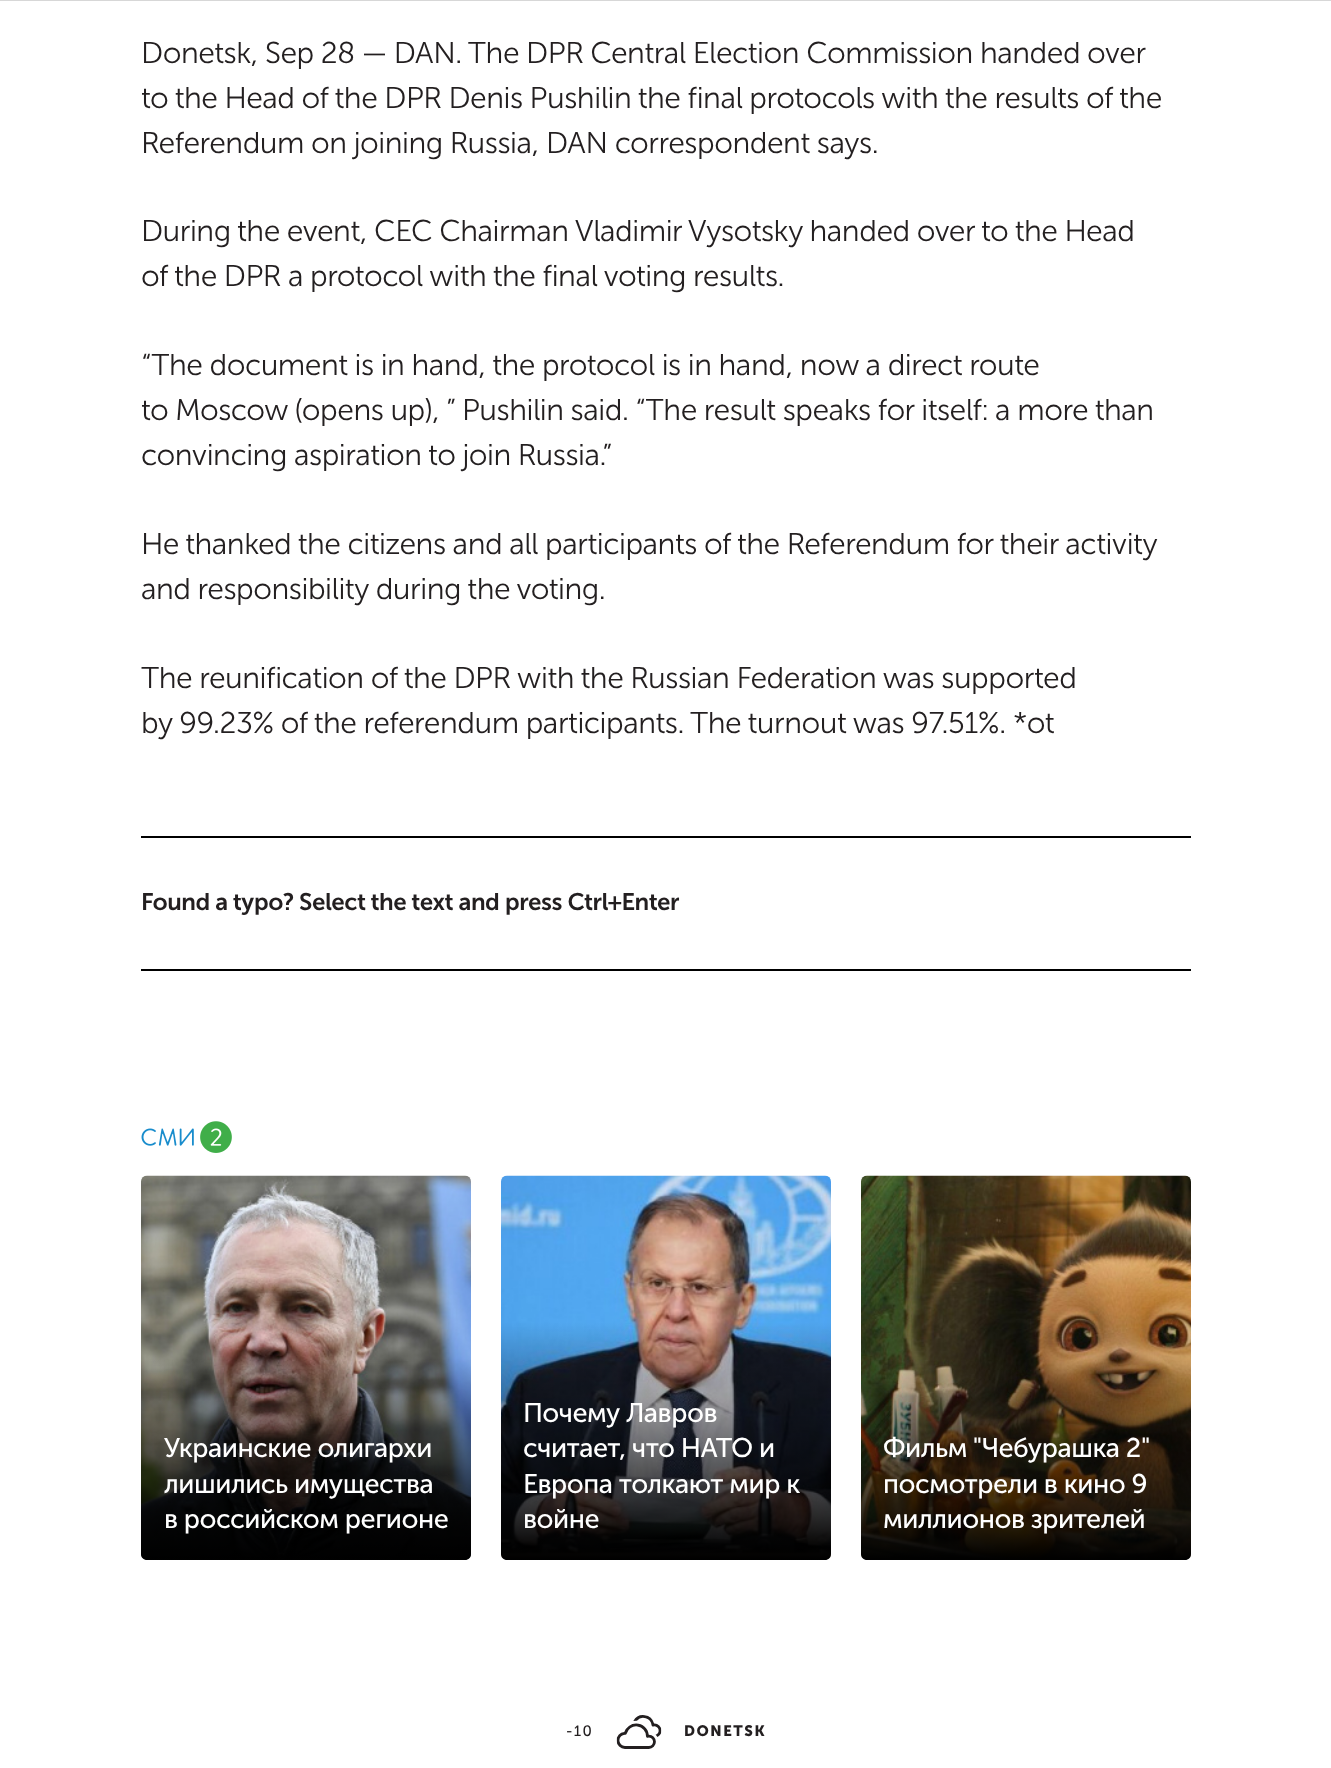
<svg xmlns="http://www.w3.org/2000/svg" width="1331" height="1768">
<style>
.a{font:300 30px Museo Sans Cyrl;letter-spacing:-0.48px;fill:#231f20}
.b{font:600 24px Museo Sans Cyrl;letter-spacing:-0.48px;fill:#231f20}
.c{font:27px Museo Sans Cyrl;letter-spacing:-0.48px;fill:#fff}
.d{font:15px Museo Sans Cyrl;letter-spacing:1.5px;fill:#231f20}
.e{font:bold 15px Museo Sans Cyrl;letter-spacing:1.5px;fill:#231f20}
</style>
<defs>
<linearGradient id="g1" gradientUnits="userSpaceOnUse" x1="306" y1="1560" x2="306" y2="1358"><stop offset="0" stop-color="#000"/><stop offset="1" stop-color="#000" stop-opacity="0"/></linearGradient>
<linearGradient id="g2" gradientUnits="userSpaceOnUse" x1="666" y1="1560" x2="666" y2="1322"><stop offset="0" stop-color="#000"/><stop offset="1" stop-color="#000" stop-opacity="0"/></linearGradient>
<linearGradient id="g3" gradientUnits="userSpaceOnUse" x1="1026" y1="1560" x2="1026" y2="1358"><stop offset="0" stop-color="#000"/><stop offset="1" stop-color="#000" stop-opacity="0"/></linearGradient>
</defs>
<rect width="100%" height="100%" fill="#fff"/>
<path fill="#d7d7d7" d="M0 0h1331v1H0z"/>
<path fill="#000" d="M141 836h1050v2H141z"/>
<path fill="#000" d="M141 969h1050v2H141z"/>
<image href="1.png" x="141" y="1121" width="91" height="32"/>
<image href="2.png" x="141" y="1175" width="330" height="385"/>
<path fill="url(#g1)" d="M141 1358h330v196c0 3.5-2.5 6-6 6h-318c-3.5 0-6-2.5-6-6z"/>
<image href="3.png" x="501" y="1175" width="330" height="385"/>
<path fill="url(#g2)" d="M501 1322h330v232c0 3.5-2.5 6-6 6h-318c-3.5 0-6-2.5-6-6z"/>
<image href="4.png" x="861" y="1175" width="330" height="385"/>
<path fill="url(#g3)" d="M861 1358h330v196c0 3.5-2.5 6-6 6h-318c-3.5 0-6-2.5-6-6z"/>
<image href="5.png" x="616" y="1715" width="46" height="34"/>
<text class="a" x="141" y="63">Donetsk, Sep 28 — DAN. The DPR Central Election Commission handed over</text>
<text class="a" x="141" y="108">to the Head of the DPR Denis Pushilin the final protocols with the results of the</text>
<text class="a" x="141" y="153">Referendum on joining Russia, DAN correspondent says.</text>
<text class="a" x="141" y="241">During the event, CEC Chairman Vladimir Vysotsky handed over to the Head</text>
<text class="a" x="141" y="286">of the DPR a protocol with the final voting results.</text>
<text class="a" x="141" y="375">“The document is in hand, the protocol is in hand, now a direct route</text>
<text class="a" x="141" y="420">to Moscow (opens up), ” Pushilin said. “The result speaks for itself: a more than</text>
<text class="a" x="141" y="465">convincing aspiration to join Russia.”</text>
<text class="a" x="141" y="554">He thanked the citizens and all participants of the Referendum for their activity</text>
<text class="a" x="141" y="599">and responsibility during the voting.</text>
<text class="a" x="141" y="688">The reunification of the DPR with the Russian Federation was supported</text>
<text class="a" x="141" y="733">by 99.23% of the referendum participants. The turnout was 97.51%. *ot</text>
<text class="b" x="141" y="910">Found a typo? Select the text and press Ctrl+Enter</text>
<text class="c" x="164" y="1457">Украинские олигархи</text>
<text class="c" x="164" y="1493">лишились имущества</text>
<text class="c" x="164" y="1528">в российском регионе</text>
<text class="c" x="523" y="1422">Почему Лавров</text>
<text class="c" x="523" y="1457">считает, что НАТО и</text>
<text class="c" x="523" y="1493">Европа толкают мир к</text>
<text class="c" x="523" y="1528">войне</text>
<text class="c" x="883" y="1457">Фильм "Чебурашка 2"</text>
<text class="c" x="883" y="1493">посмотрели в кино 9</text>
<text class="c" x="883" y="1528">миллионов зрителей</text>
<text class="d" x="566" y="1736">-10</text>
<text class="e" x="684" y="1736">DONETSK</text>
</svg>
